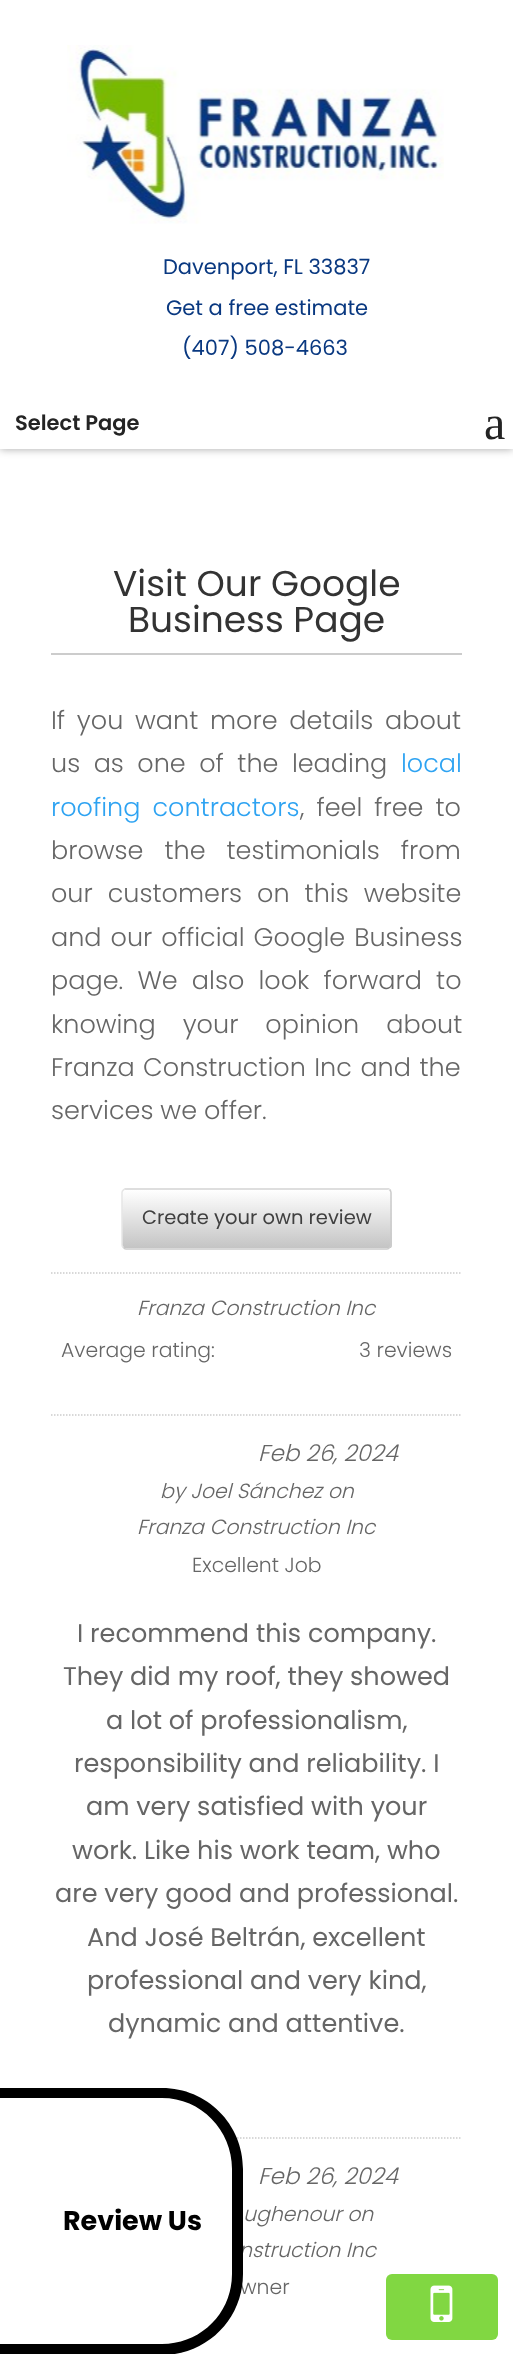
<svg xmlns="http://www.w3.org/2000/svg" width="513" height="2354">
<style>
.a{font:21px Poppins;fill:#093880}
.b{font:600 21px Poppins;fill:#242424}
.c{font:48px Liberation Serif;fill:#242424}
.d{font:36px Poppins;fill:#333}
.e{font:300 25.5px Poppins;fill:#666}
.f{font:300 25.5px Poppins;fill:#2ea3f2}
.g{font:19.5px Poppins;fill:#404040}
.h{font:italic 300 20.4px Poppins;fill:#666}
.i{font:300 20.4px Poppins;fill:#666}
.j{font:italic 300 23px Poppins;fill:#666}
.k{font:25.5px Poppins;fill:#666}
.l{font:bold 27px Poppins;fill:#000}
</style>
<defs>
<clipPath id="clip1"><rect x="122" y="1188" width="270" height="62" rx="5"/></clipPath>
<linearGradient id="g1" gradientUnits="userSpaceOnUse" x1="257" y1="1131" x2="257" y2="1190"><stop offset="0" stop-color="#fff"/><stop offset="1" stop-color="#c4c4c4"/></linearGradient>
<linearGradient id="g2" gradientUnits="userSpaceOnUse" x1="257" y1="1190" x2="257" y2="1248"><stop offset="0" stop-color="#fff"/><stop offset="1" stop-color="#c4c4c4"/></linearGradient>
</defs>
<rect width="100%" height="100%" fill="#fff"/>
<path fill="#00000059" filter="blur(4px)" d="M0 0h513v449H0z"/>
<path fill="#fff" d="M0 0h513v449H0z"/>
<image href="1.png" x="67" y="45" width="377" height="179"/>
<path fill="#ccc" d="M51 653h411v2H51z"/>
<g clip-path="url(#clip1)">
<path fill="url(#g1)" d="M122 1188h270v2H122z"/>
<path fill="url(#g2)" d="M122 1190h270v58H122z"/>
</g>
<path fill="none" stroke="#ccc" stroke-width="1.5" d="M389.5 1190c1 .5 1.5 1.5 1.5 2.5v52.5c0 1-.5 2-1.5 2.5c-.5 1-1.5 1.5-2.5 1.5h-261c-1 0-2-.5-2.5-1.5"/>
<path fill="none" stroke="#e6e6e6" stroke-width="1.5" d="M123.5 1247.5c-1-.5-1.5-1.5-1.5-2.5v-52.5c0-1 .5-2 1.5-2.5c.5-1 1.5-1 2.5-1h261c1 0 2 0 2.5 1"/>
<path fill="none" stroke="#ccc" stroke-width="1.5" stroke-dasharray="1.5 1.5" d="M51 1273h411"/>
<path fill="none" stroke="#ccc" stroke-width="1.5" stroke-dasharray="1.5 1.5" d="M51 1415h411"/>
<path fill="none" stroke="#ccc" stroke-width="1.5" stroke-dasharray="1.5 1.5" d="M51 2138h411"/>
<rect fill="#81d742" x="386" y="2274" width="112" height="66" rx="6"/>
<image href="2.png" x="430" y="2285" width="23" height="37"/>
<text class="a" x="163" y="274">Davenport, FL 33837</text>
<text class="a" x="166" y="315">Get a free estimate</text>
<text class="a" x="182" y="355">(407) 508-4663</text>
<text class="b" x="15" y="430">Select Page</text>
<text class="c" x="484" y="439">a</text>
<text class="d" x="113" y="596">Visit Our Google</text>
<text class="d" x="128" y="632">Business Page</text>
<text class="e" x="51" y="729" word-spacing="4.75">If you want more details about</text>
<text class="e" x="51" y="772" word-spacing="6.5">us as one of the leading</text>
<text class="f" x="401" y="772">local</text>
<text class="f" x="51" y="816" word-spacing="5">roofing contractors</text>
<text class="e" x="300" y="816" word-spacing="5">, feel free to</text>
<text class="e" x="51" y="859" word-spacing="14">browse the testimonials from</text>
<text class="e" x="51" y="902" word-spacing="8">our customers on this website</text>
<text class="e" x="51" y="946" word-spacing="2">and our official Google Business</text>
<text class="e" x="51" y="989" word-spacing="7.25">page. We also look forward to</text>
<text class="e" x="51" y="1033" word-spacing="20">knowing your opinion about</text>
<text class="e" x="51" y="1076" word-spacing="1.5">Franza Construction Inc and the</text>
<text class="e" x="51" y="1119">services we offer.</text>
<text class="g" x="142" y="1224">Create your own review</text>
<text class="h" x="137" y="1315">Franza Construction Inc</text>
<text class="i" x="61" y="1357">Average rating:</text>
<text class="i" x="359" y="1357">3 reviews</text>
<text class="j" x="258" y="1461">Feb 26, 2024</text>
<text class="h" x="160" y="1498">by Joel Sánchez on</text>
<text class="h" x="137" y="1534">Franza Construction Inc</text>
<text class="i" x="192" y="1572">Excellent Job</text>
<text class="k" x="77" y="1642">I recommend this company.</text>
<text class="k" x="63" y="1685">They did my roof, they showed</text>
<text class="k" x="106" y="1729">a lot of professionalism,</text>
<text class="k" x="74" y="1772">responsibility and reliability. I</text>
<text class="k" x="86" y="1815">am very satisfied with your</text>
<text class="k" x="72" y="1859">work. Like his work team, who</text>
<text class="k" x="55" y="1902">are very good and professional.</text>
<text class="k" x="87" y="1946">And José Beltrán, excellent</text>
<text class="k" x="87" y="1989">professional and very kind,</text>
<text class="k" x="108" y="2032">dynamic and attentive.</text>
<text class="j" x="258" y="2184">Feb 26, 2024</text>
<text class="h" x="243" y="2221">ughenour on</text>
<text class="h" x="239" y="2257">nstruction Inc</text>
<text class="i" x="240" y="2294">wner</text>
<path fill="#fff" d="M0 2088h162c44.5 0 81 36.5 81 81v105c0 44.5-36.5 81-81 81h-162z"/>
<path fill="#000" fill-rule="evenodd" d="M0 2088h162c45 0 81 36 81 81v105c0 45-36 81-81 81h-162zm0 10h162c39 0 70 32 70 71v105c0 39-31 70-70 70h-162z"/>
<text class="l" x="63" y="2230">Review Us</text>
</svg>
